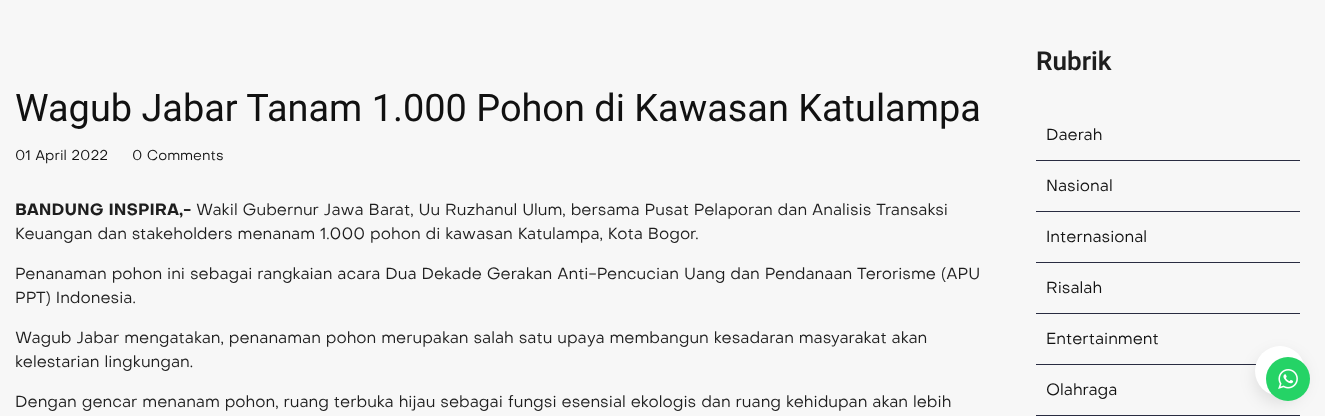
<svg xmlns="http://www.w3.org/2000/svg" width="1325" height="416">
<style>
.a{font:37.9px Roboto;fill:#111}
.b{font:14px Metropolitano;fill:#111}
.c{font:bold 16px Metropolitano;fill:#1e1e1e}
.d{font:16px Metropolitano;fill:#1e1e1e}
.e{font:600 26px Roboto;fill:#1e1e1e}
.f{font:16px Metropolitano;fill:#111}
</style>
<rect width="100%" height="100%" fill="#f7f7f7"/>
<path fill="#292c41" d="M1036 160h264v1H1036z"/>
<path fill="#292c41" d="M1036 211h264v1H1036z"/>
<path fill="#292c41" d="M1036 262h264v1H1036z"/>
<path fill="#292c41" d="M1036 313h264v1H1036z"/>
<path fill="#292c41" d="M1036 364h220v1H1036z"/>
<path fill="#292c41" d="M1036 415h264v1H1036z"/>
<rect fill="#0000001a" filter="blur(8px)" x="1255" y="353" width="50" height="50" rx="25"/>
<circle fill="#fff" cx="1280" cy="371" r="25"/>
<circle fill="#25d366" cx="1288" cy="379" r="22"/>
<image href="1.png" x="1278" y="369" width="20" height="20"/>
<text class="a" x="15" y="121">Wagub Jabar Tanam 1.000 Pohon di Kawasan Katulampa</text>
<text class="b" x="15" y="160">01 April 2022</text>
<text class="b" x="132" y="160">0 Comments</text>
<text class="c" x="15" y="215">BANDUNG INSPIRA,-</text>
<text class="d" x="196" y="215">Wakil Gubernur Jawa Barat, Uu Ruzhanul Ulum, bersama Pusat Pelaporan dan Analisis Transaksi</text>
<text class="d" x="15" y="239">Keuangan dan stakeholders menanam 1.000 pohon di kawasan Katulampa, Kota Bogor.</text>
<text class="d" x="15" y="279">Penanaman pohon ini sebagai rangkaian acara Dua Dekade Gerakan Anti-Pencucian Uang dan Pendanaan Terorisme (APU</text>
<text class="d" x="15" y="303">PPT) Indonesia.</text>
<text class="d" x="15" y="343">Wagub Jabar mengatakan, penanaman pohon merupakan salah satu upaya membangun kesadaran masyarakat akan</text>
<text class="d" x="15" y="367">kelestarian lingkungan.</text>
<text class="d" x="15" y="407">Dengan gencar menanam pohon, ruang terbuka hijau sebagai fungsi esensial ekologis dan ruang kehidupan akan lebih</text>
<text class="e" x="1036" y="70">Rubrik</text>
<text class="f" x="1046" y="140">Daerah</text>
<text class="f" x="1046" y="191">Nasional</text>
<text class="f" x="1046" y="242">Internasional</text>
<text class="f" x="1046" y="293">Risalah</text>
<text class="f" x="1046" y="344">Entertainment</text>
<text class="f" x="1046" y="395">Olahraga</text>
</svg>
